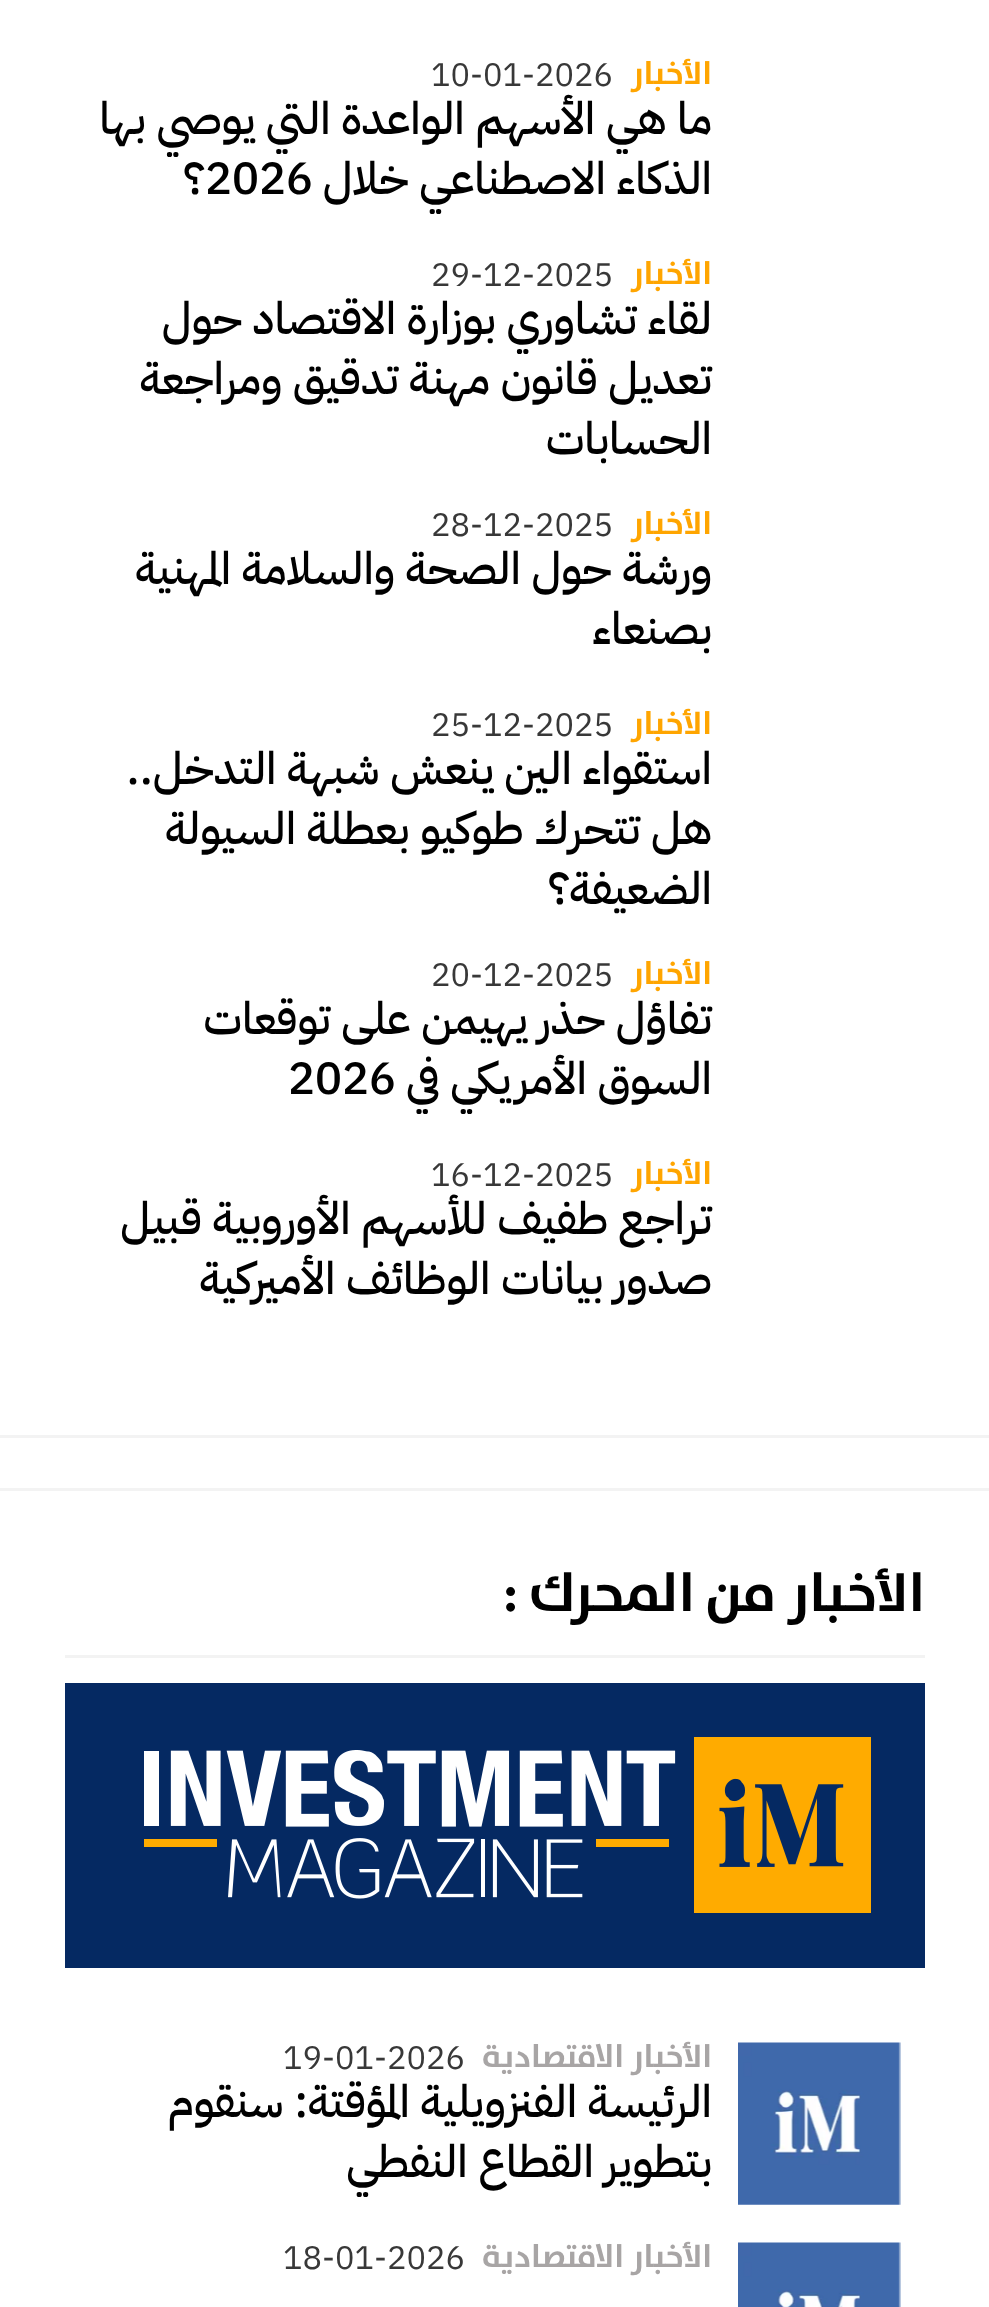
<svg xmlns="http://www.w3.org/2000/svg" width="989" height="2307">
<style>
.a{font:bold 32.5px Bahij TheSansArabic;direction:rtl;fill:#ffa500}
.b{font:32.5px IBM Plex Sans Arabic;fill:#383838}
.c{font:500 45px IBM Plex Sans Arabic;direction:rtl;fill:#000}
.d{font:500 45px IBM Plex Sans Arabic;fill:#000}
.e{font:bold 55px Bahij TheSansArabic;direction:rtl;fill:#000}
.f{font:bold 32.5px Bahij TheSansArabic;direction:rtl;fill:#a8a5a5}
</style>
<rect width="100%" height="100%" fill="#fff"/>
<path fill="none" stroke="#f3f3f3" stroke-width="3" d="M-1.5 -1.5h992v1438H-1.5z"/>
<path fill="none" stroke="#f3f3f3" stroke-width="3" d="M-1.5 1489.5h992v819H-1.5z"/>
<path fill="#f3f3f3" d="M65 1655h860v3H65z"/>
<path fill="#052962" d="M65 1683h860v285H65z"/>
<image href="1.png" x="144" y="1737" width="727" height="176"/>
<image href="2.png" x="738" y="2042" width="163" height="163"/>
<image href="3.png" x="738" y="2242" width="163" height="65"/>
<text class="a" x="712" y="84">الأخبار</text>
<text class="b" x="431" y="86">10-01-2026</text>
<text class="c" x="712" y="134">ما هي الأسهم الواعدة التي يوصي بها</text>
<text class="c" x="712" y="194">الذكاء الاصطناعي خلال</text>
<text class="d" x="205" y="194">2026</text>
<text class="c" x="205" y="194">؟</text>
<text class="a" x="712" y="284">الأخبار</text>
<text class="b" x="431" y="286">29-12-2025</text>
<text class="c" x="712" y="334">لقاء تشاوري بوزارة الاقتصاد حول</text>
<text class="c" x="712" y="394">تعديل قانون مهنة تدقيق ومراجعة</text>
<text class="c" x="712" y="454">الحسابات</text>
<text class="a" x="712" y="534">الأخبار</text>
<text class="b" x="431" y="536">28-12-2025</text>
<text class="c" x="712" y="584">ورشة حول الصحة والسلامة المهنية</text>
<text class="c" x="712" y="644">بصنعاء</text>
<text class="a" x="712" y="734">الأخبار</text>
<text class="b" x="431" y="736">25-12-2025</text>
<text class="c" x="712" y="784">استقواء الين ينعش شبهة التدخل..</text>
<text class="c" x="712" y="844">هل تتحرك طوكيو بعطلة السيولة</text>
<text class="c" x="712" y="904">الضعيفة؟</text>
<text class="a" x="712" y="984">الأخبار</text>
<text class="b" x="431" y="986">20-12-2025</text>
<text class="c" x="712" y="1034">تفاؤل حذر يهيمن على توقعات</text>
<text class="c" x="712" y="1094">السوق الأمريكي في</text>
<text class="d" x="288" y="1094">2026</text>
<text class="a" x="712" y="1184">الأخبار</text>
<text class="b" x="431" y="1186">16-12-2025</text>
<text class="c" x="712" y="1234">تراجع طفيف للأسهم الأوروبية قبيل</text>
<text class="c" x="712" y="1294">صدور بيانات الوظائف الأميركية</text>
<text class="e" x="925" y="1611">الأخبار من المحرك :</text>
<text class="f" x="712" y="2067">الأخبار الاقتصادية</text>
<text class="b" x="283" y="2069">19-01-2026</text>
<text class="c" x="712" y="2117">الرئيسة الفنزويلية المؤقتة: سنقوم</text>
<text class="c" x="712" y="2177">بتطوير القطاع النفطي</text>
<text class="f" x="712" y="2267">الأخبار الاقتصادية</text>
<text class="b" x="283" y="2269">18-01-2026</text>
</svg>
